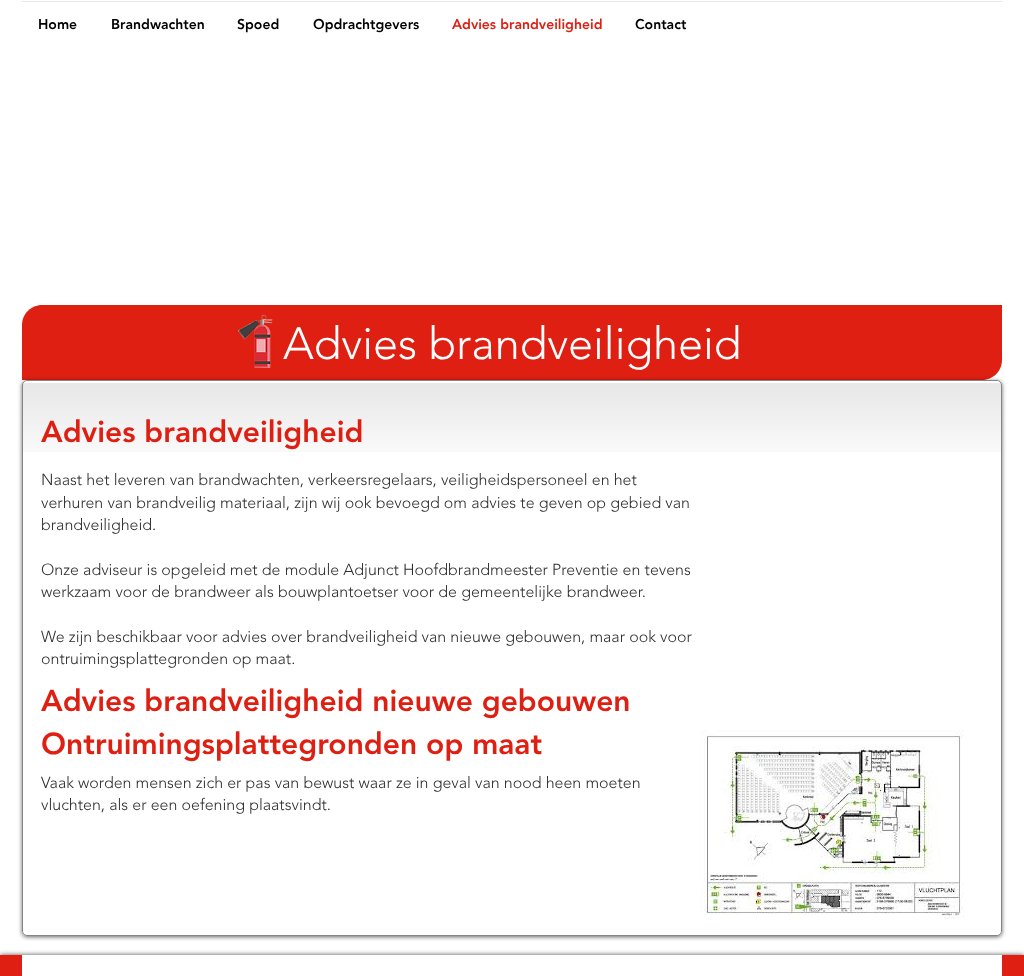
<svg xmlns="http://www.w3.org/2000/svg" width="1024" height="976">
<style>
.a{font:900 14px 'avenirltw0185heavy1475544';fill:#000}
.b{font:900 14px 'avenirltw0185heavy1475544';fill:#de1f12}
.c{font:300 45px 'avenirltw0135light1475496';fill:#fff}
.d{font:900 30px 'avenirltw0185heavy1475544';fill:#de1f12}
.e{font:300 16px 'avenirltw0135light1475496';fill:#2f2e2e}
</style>
<rect width="100%" height="100%" fill="#fff"/>
<path fill="#e8e8e8" d="M22 1h980v1H22z"/>
<path fill="#de1f12" d="M42 305h960v55c0 11-9 20-20 20h-960v-55c0-11 9-20 20-20z"/>
<image href="1.png" x="238" y="314" width="35" height="54"/>
<rect fill="#00000099" filter="blur(2px)" x="22" y="381" width="980" height="556" rx="5"/>
<rect fill="#fff" x="22" y="380" width="980" height="556" rx="5"/>
<image href="2.png" x="22" y="383" width="980" height="69"/>
<rect fill="none" stroke="#858585" x="22.5" y="380.5" width="979" height="555" rx="4.5"/>
<image href="3.png" x="700" y="730" width="264" height="189"/>
<path fill="#000000b3" filter="blur(2.5px)" d="M0 955h1024v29H0z"/>
<path fill="#de1f12" d="M0 955h1024v21H0z"/>
<path fill="#fff" d="M22 955h980v21H22z"/>
<text class="a" x="38" y="29">Home</text>
<text class="a" x="111" y="29">Brandwachten</text>
<text class="a" x="237" y="29">Spoed</text>
<text class="a" x="313" y="29">Opdrachtgevers</text>
<text class="b" x="452" y="29">Advies brandveiligheid</text>
<text class="a" x="635" y="29">Contact</text>
<text class="c" x="283" y="359">Advies brandveiligheid</text>
<text class="d" x="41" y="442">Advies brandveiligheid</text>
<text class="e" x="41" y="485">Naast het leveren van brandwachten, verkeersregelaars, veiligheidspersoneel en het</text>
<text class="e" x="41" y="508">verhuren van brandveilig materiaal, zijn wij ook bevoegd om advies te geven op gebied van</text>
<text class="e" x="41" y="530">brandveiligheid.</text>
<text class="e" x="41" y="575">Onze adviseur is opgeleid met de module Adjunct Hoofdbrandmeester Preventie en tevens</text>
<text class="e" x="41" y="597">werkzaam voor de brandweer als bouwplantoetser voor de gemeentelijke brandweer.</text>
<text class="e" x="41" y="642">We zijn beschikbaar voor advies over brandveiligheid van nieuwe gebouwen, maar ook voor</text>
<text class="e" x="41" y="664">ontruimingsplattegronden op maat.</text>
<text class="d" x="41" y="711">Advies brandveiligheid nieuwe gebouwen</text>
<text class="d" x="41" y="754">Ontruimingsplattegronden op maat</text>
<text class="e" x="41" y="788">Vaak worden mensen zich er pas van bewust waar ze in geval van nood heen moeten</text>
<text class="e" x="41" y="810">vluchten, als er een oefening plaatsvindt.</text>
</svg>
